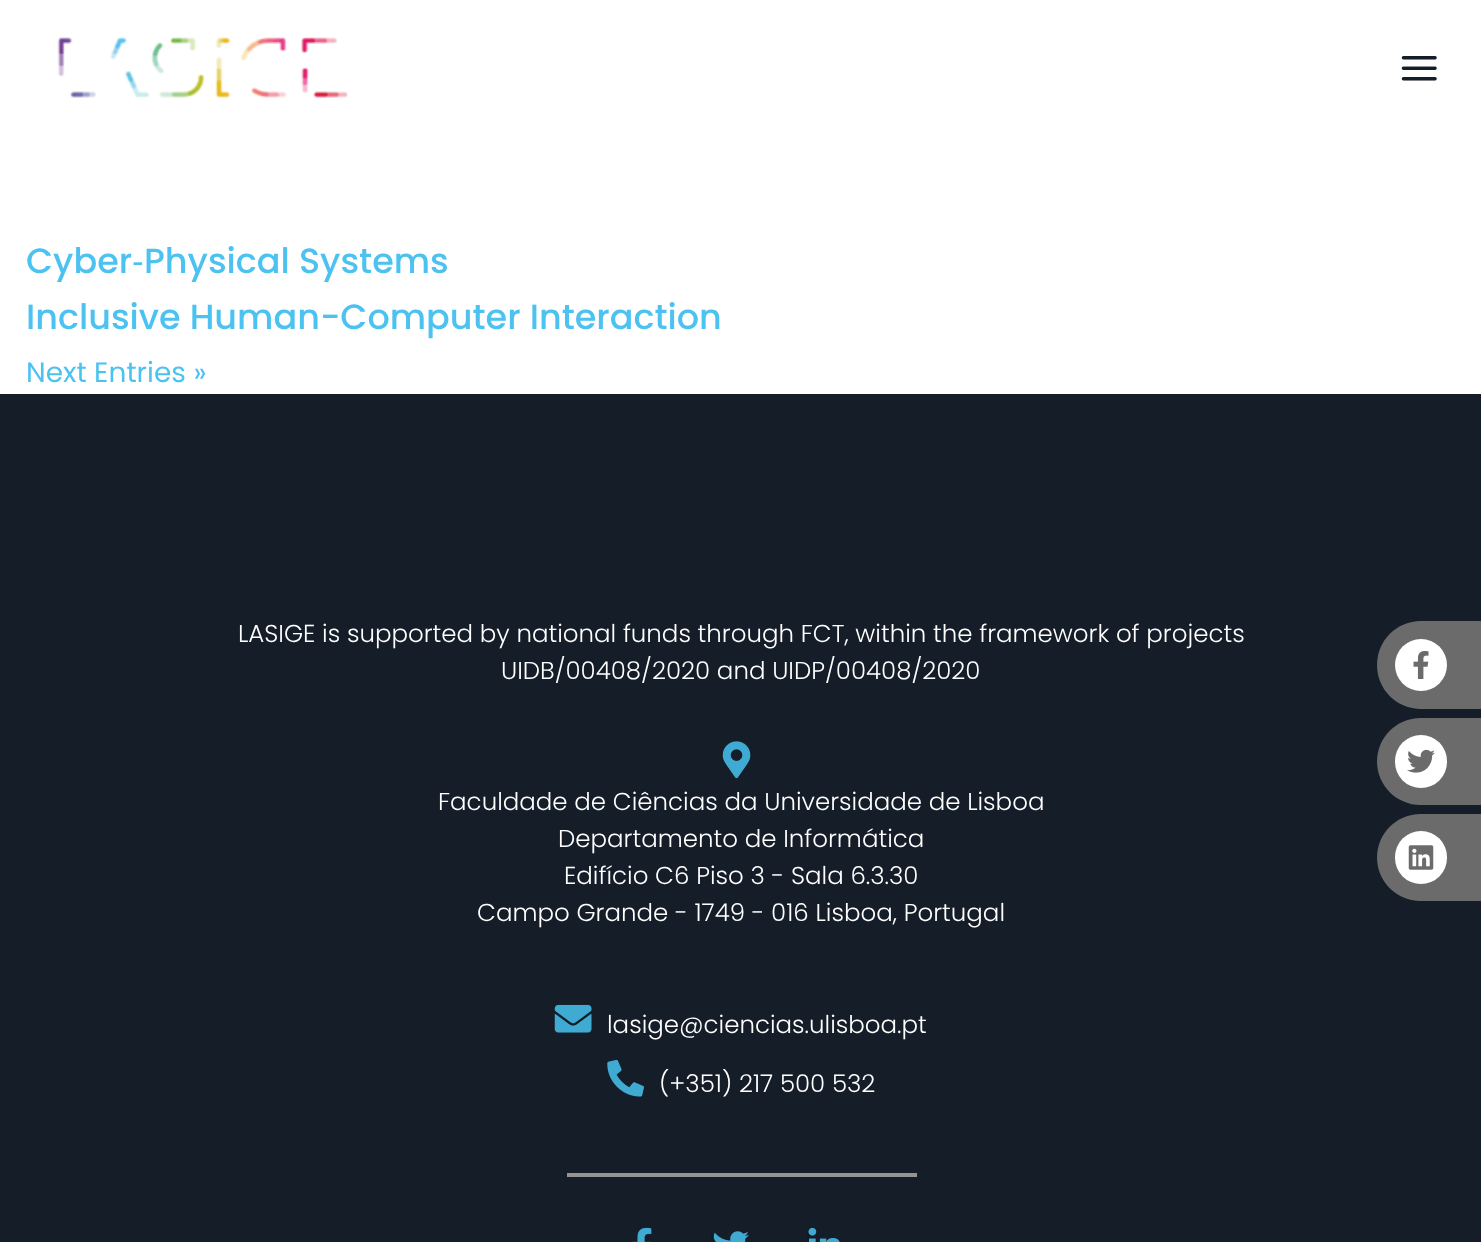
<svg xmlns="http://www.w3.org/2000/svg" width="1481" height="1242">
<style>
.a{font:500 35px Poppins;fill:#4cc2f1}
.b{font:35px Liberation Sans;fill:#4cc2f1}
.c{font:28px Poppins;fill:#4cc2f1}
.d{font:300 24.5px Poppins;fill:#fff}
</style>
<rect width="100%" height="100%" fill="#fff"/>
<image href="1.png" x="57" y="37" width="291" height="61"/>
<image href="2.png" x="1401" y="56" width="36" height="25"/>
<path fill="#141d28" d="M0 394h1481v848H0z"/>
<image href="3.png" x="722" y="741" width="29" height="38"/>
<image href="4.png" x="554" y="1004" width="38" height="29"/>
<image href="5.png" x="607" y="1059" width="37" height="38"/>
<path fill="#939393" d="M567 1173h350v4H567z"/>
<image href="6.png" x="631" y="1227" width="21" height="15"/>
<path fill="#111922" d="M711 1234h2v8H711z"/>
<image href="7.png" x="713" y="1231" width="36" height="11"/>
<path fill="#111922" d="M807 1234h2v8H807z"/>
<image href="8.png" x="808" y="1227" width="32" height="15"/>
<path fill="#6b6b6b" d="M1421 621h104v88h-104c-24.5 0-44-19.5-44-44c0-24.5 19.5-44 44-44z"/>
<circle fill="#fff" cx="1421" cy="665" r="26"/>
<image href="9.png" x="1413" y="651" width="16" height="28"/>
<path fill="#6b6b6b" d="M1420.5 718h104.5v87h-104.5c-24 0-43.5-19.5-43.5-43.5c0-24 19.5-43.5 43.5-43.5z"/>
<rect fill="#fff" x="1395" y="735" width="52" height="53" rx="26"/>
<image href="10.png" x="1407" y="749" width="28" height="24"/>
<path fill="#6b6b6b" d="M1420.5 814h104.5v87h-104.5c-24 0-43.5-19.5-43.5-43.5c0-24 19.5-43.5 43.5-43.5z"/>
<rect fill="#fff" x="1395" y="831" width="52" height="53" rx="26"/>
<image href="11.png" x="1408" y="845" width="26" height="25"/>
<text class="a" x="26" y="273">Cyber</text>
<text class="b" x="132" y="273">‐</text>
<text class="a" x="144" y="273">Physical Systems</text>
<text class="a" x="26" y="329">Inclusive Human-Computer Interaction</text>
<text class="c" x="26" y="382">Next Entries »</text>
<text class="d" x="238" y="642">LASIGE is supported by national funds through FCT, within the framework of projects</text>
<text class="d" x="501" y="679">UIDB/00408/2020 and UIDP/00408/2020</text>
<text class="d" x="438" y="810">Faculdade de Ciências da Universidade de Lisboa</text>
<text class="d" x="558" y="847">Departamento de Informática</text>
<text class="d" x="564" y="884">Edifício C6 Piso 3 - Sala 6.3.30</text>
<text class="d" x="477" y="921">Campo Grande - 1749 - 016 Lisboa, Portugal</text>
<text class="d" x="607" y="1033">lasige@ciencias.ulisboa.pt</text>
<text class="d" x="659" y="1092">(+351) 217 500 532</text>
</svg>
